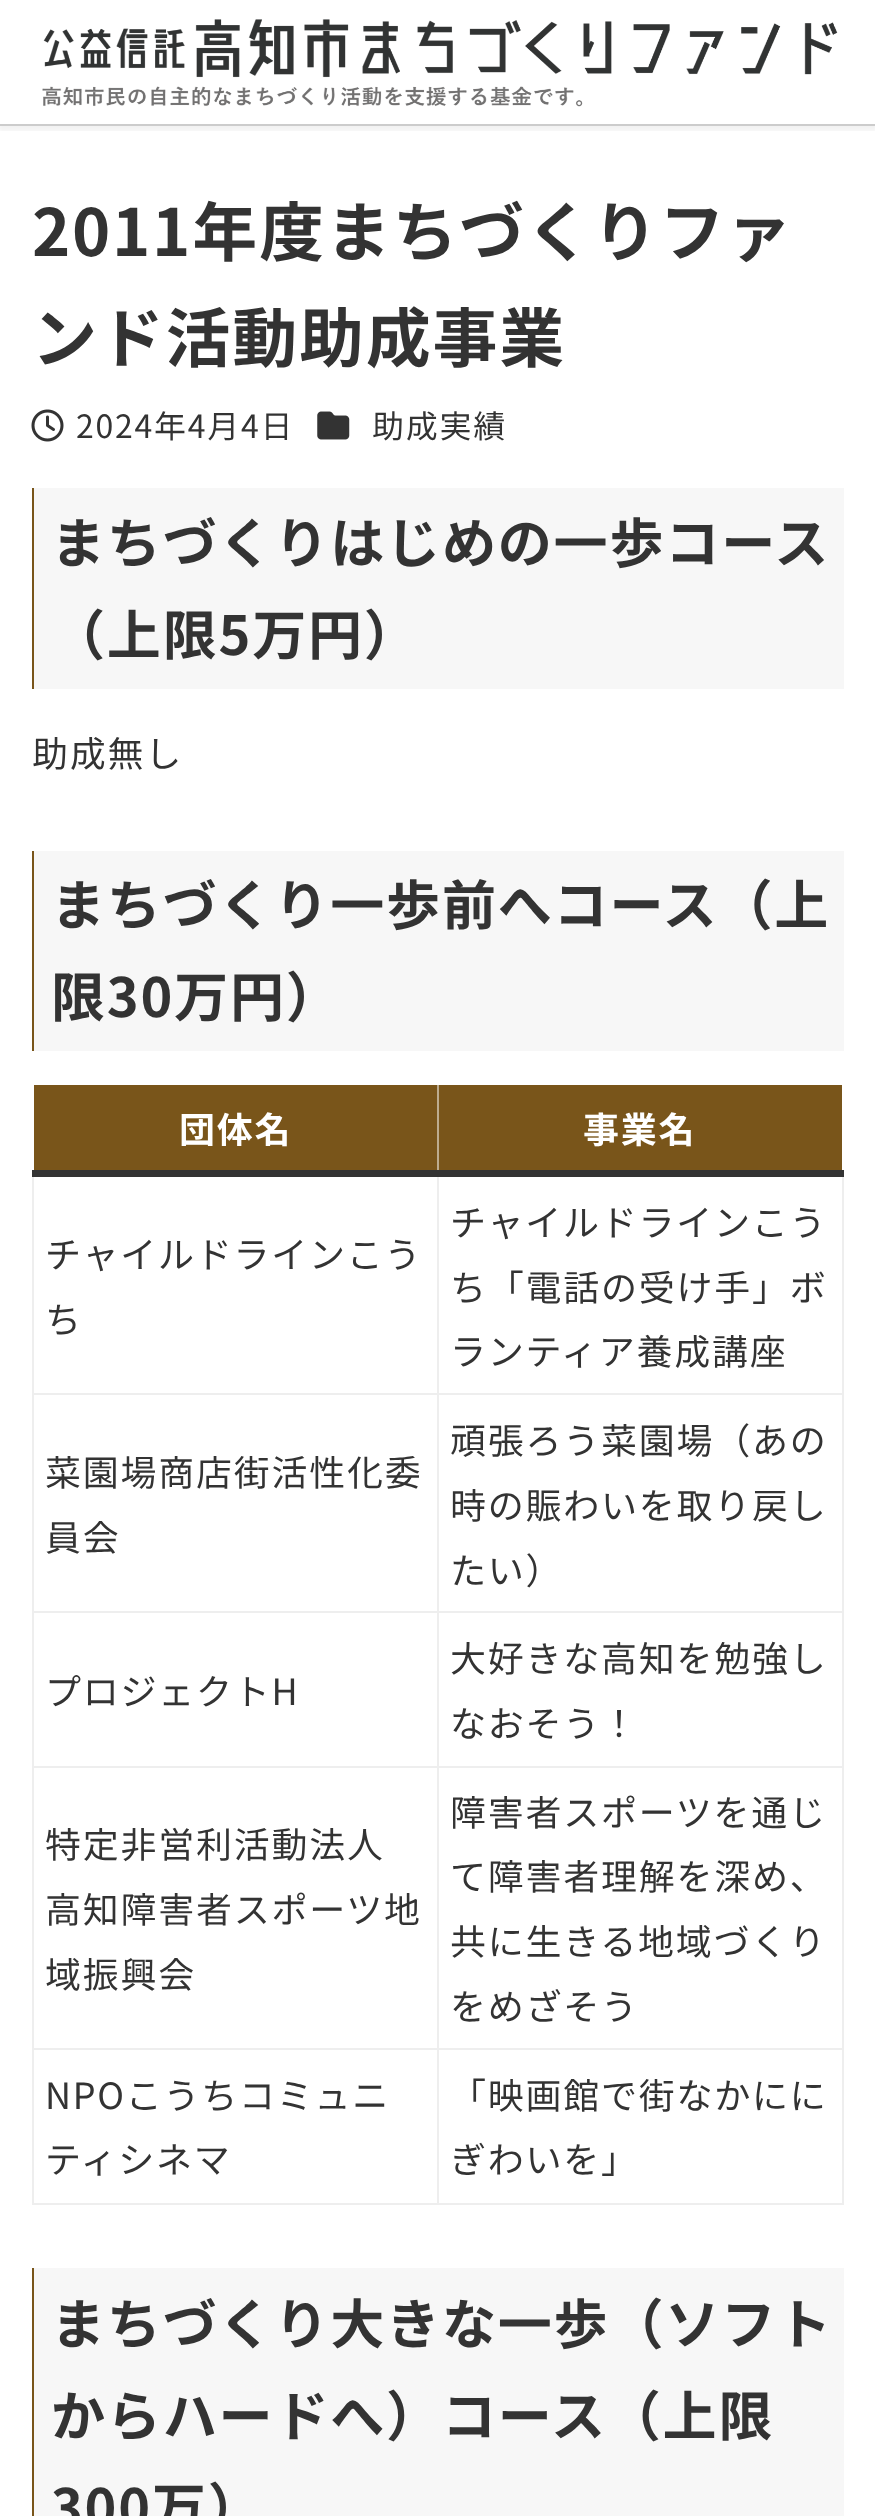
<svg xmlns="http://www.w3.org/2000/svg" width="875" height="2516">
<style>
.a{font:bold 65px Noto Sans JP;letter-spacing:1.75px;fill:#333}
.b{font:32px Noto Sans JP;letter-spacing:1.75px;fill:#333}
.c{font:bold 54.1px Noto Sans JP;letter-spacing:1.75px;fill:#333}
.d{font:36px Noto Sans JP;letter-spacing:1.75px;fill:#333}
.e{font:bold 36px Noto Sans JP;letter-spacing:1.75px;fill:#fff}
</style>
<defs>
<clipPath id="clip1"><path d="M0 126h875v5H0z"/></clipPath>
</defs>
<rect width="100%" height="100%" fill="#fff"/>
<g clip-path="url(#clip1)">
<path fill="#0000000d" filter="blur(2px)" d="M-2 0h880v131H-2z"/>
</g>
<path fill="#ccc" d="M0 124h875v2H0z"/>
<image href="1.png" x="42" y="19" width="796" height="88"/>
<image href="2.png" x="31" y="409" width="33" height="33"/>
<image href="3.png" x="317" y="411" width="33" height="29"/>
<path fill="#f7f7f7" d="M34 488h810v201H34z"/>
<path fill="#79551a" d="M32 488h2v201H32z"/>
<path fill="#f7f7f7" d="M34 851h810v200H34z"/>
<path fill="#79551a" d="M32 851h2v200H32z"/>
<path fill="#79551a" d="M34 1085h808v85H34z"/>
<path fill="#bdac8f" d="M437 1085h2v90H437z"/>
<path fill="#eee" d="M437 1393h407v2H437z"/>
<path fill="#eee" d="M437 1611h407v2H437z"/>
<path fill="#eee" d="M437 1766h407v2H437z"/>
<path fill="#eee" d="M437 2048h407v2H437z"/>
<path fill="#eee" d="M842 2048h2v157H842z"/>
<path fill="#eee" d="M437 2203h407v2H437z"/>
<path fill="#eee" d="M437 2048h2v157H437z"/>
<path fill="#eee" d="M32 2048h407v2H32z"/>
<path fill="#eee" d="M437 1766h2v284H437z"/>
<path fill="#eee" d="M32 1766h407v2H32z"/>
<path fill="#eee" d="M437 1611h2v158H437z"/>
<path fill="#eee" d="M32 1611h407v2H32z"/>
<path fill="#eee" d="M437 1393h2v220H437z"/>
<path fill="#eee" d="M32 1393h407v2H32z"/>
<path fill="#eee" d="M437 1172h2v223H437z"/>
<path fill="#eee" d="M32 2203h407v2H32z"/>
<path fill="#eee" d="M32 2048h2v157H32z"/>
<path fill="#eee" d="M32 1766h2v284H32z"/>
<path fill="#eee" d="M32 1611h2v158H32z"/>
<path fill="#eee" d="M32 1172h2v441H32z"/>
<path fill="#eee" d="M842 1766h2v284H842z"/>
<path fill="#eee" d="M842 1611h2v158H842z"/>
<path fill="#eee" d="M842 1172h2v441H842z"/>
<path fill="#333" d="M32 1170h812v7H32z"/>
<path fill="#f7f7f7" d="M34 2268h810v248H34z"/>
<path fill="#79551a" d="M32 2268h2v248H32z"/>
<text class="a" x="32" y="256">2011年度まちづくりファ</text>
<text class="a" x="32" y="362">ンド活動助成事業</text>
<text class="b" x="76" y="438">2024年4月4日</text>
<text class="b" x="372" y="438">助成実績</text>
<text class="c" x="51" y="563">まちづくりはじめの一歩コース</text>
<text class="c" x="51" y="655">（上限5万円）</text>
<text class="d" x="32" y="767">助成無し</text>
<text class="c" x="51" y="925">まちづくり一歩前へコース（上</text>
<text class="c" x="51" y="1017">限30万円）</text>
<text class="e" x="179" y="1143">団体名</text>
<text class="e" x="583" y="1143">事業名</text>
<text class="d" x="45" y="1268">チャイルドラインこう</text>
<text class="d" x="45" y="1333">ち</text>
<text class="d" x="450" y="1236">チャイルドラインこう</text>
<text class="d" x="450" y="1301">ち「電話の受け手」ボ</text>
<text class="d" x="450" y="1365">ランティア養成講座</text>
<text class="d" x="45" y="1486">菜園場商店街活性化委</text>
<text class="d" x="45" y="1551">員会</text>
<text class="d" x="450" y="1454">頑張ろう菜園場（あの</text>
<text class="d" x="450" y="1519">時の賑わいを取り戻し</text>
<text class="d" x="450" y="1584">たい）</text>
<text class="d" x="45" y="1705">プロジェクトH</text>
<text class="d" x="450" y="1672">大好きな高知を勉強し</text>
<text class="d" x="450" y="1737">なおそう！</text>
<text class="d" x="45" y="1858">特定非営利活動法人</text>
<text class="d" x="45" y="1923">高知障害者スポーツ地</text>
<text class="d" x="45" y="1988">域振興会</text>
<text class="d" x="450" y="1826">障害者スポーツを通じ</text>
<text class="d" x="450" y="1890">て障害者理解を深め、</text>
<text class="d" x="450" y="1955">共に生きる地域づくり</text>
<text class="d" x="450" y="2020">をめざそう</text>
<text class="d" x="45" y="2109">NPOこうちコミュニ</text>
<text class="d" x="45" y="2173">ティシネマ</text>
<text class="d" x="450" y="2109">「映画館で街なかにに</text>
<text class="d" x="450" y="2173">ぎわいを」</text>
<text class="c" x="51" y="2344">まちづくり大きな一歩（ソフト</text>
<text class="c" x="51" y="2436">からハードへ）コース（上限</text>
<text class="c" x="51" y="2528">300万）</text>
</svg>
